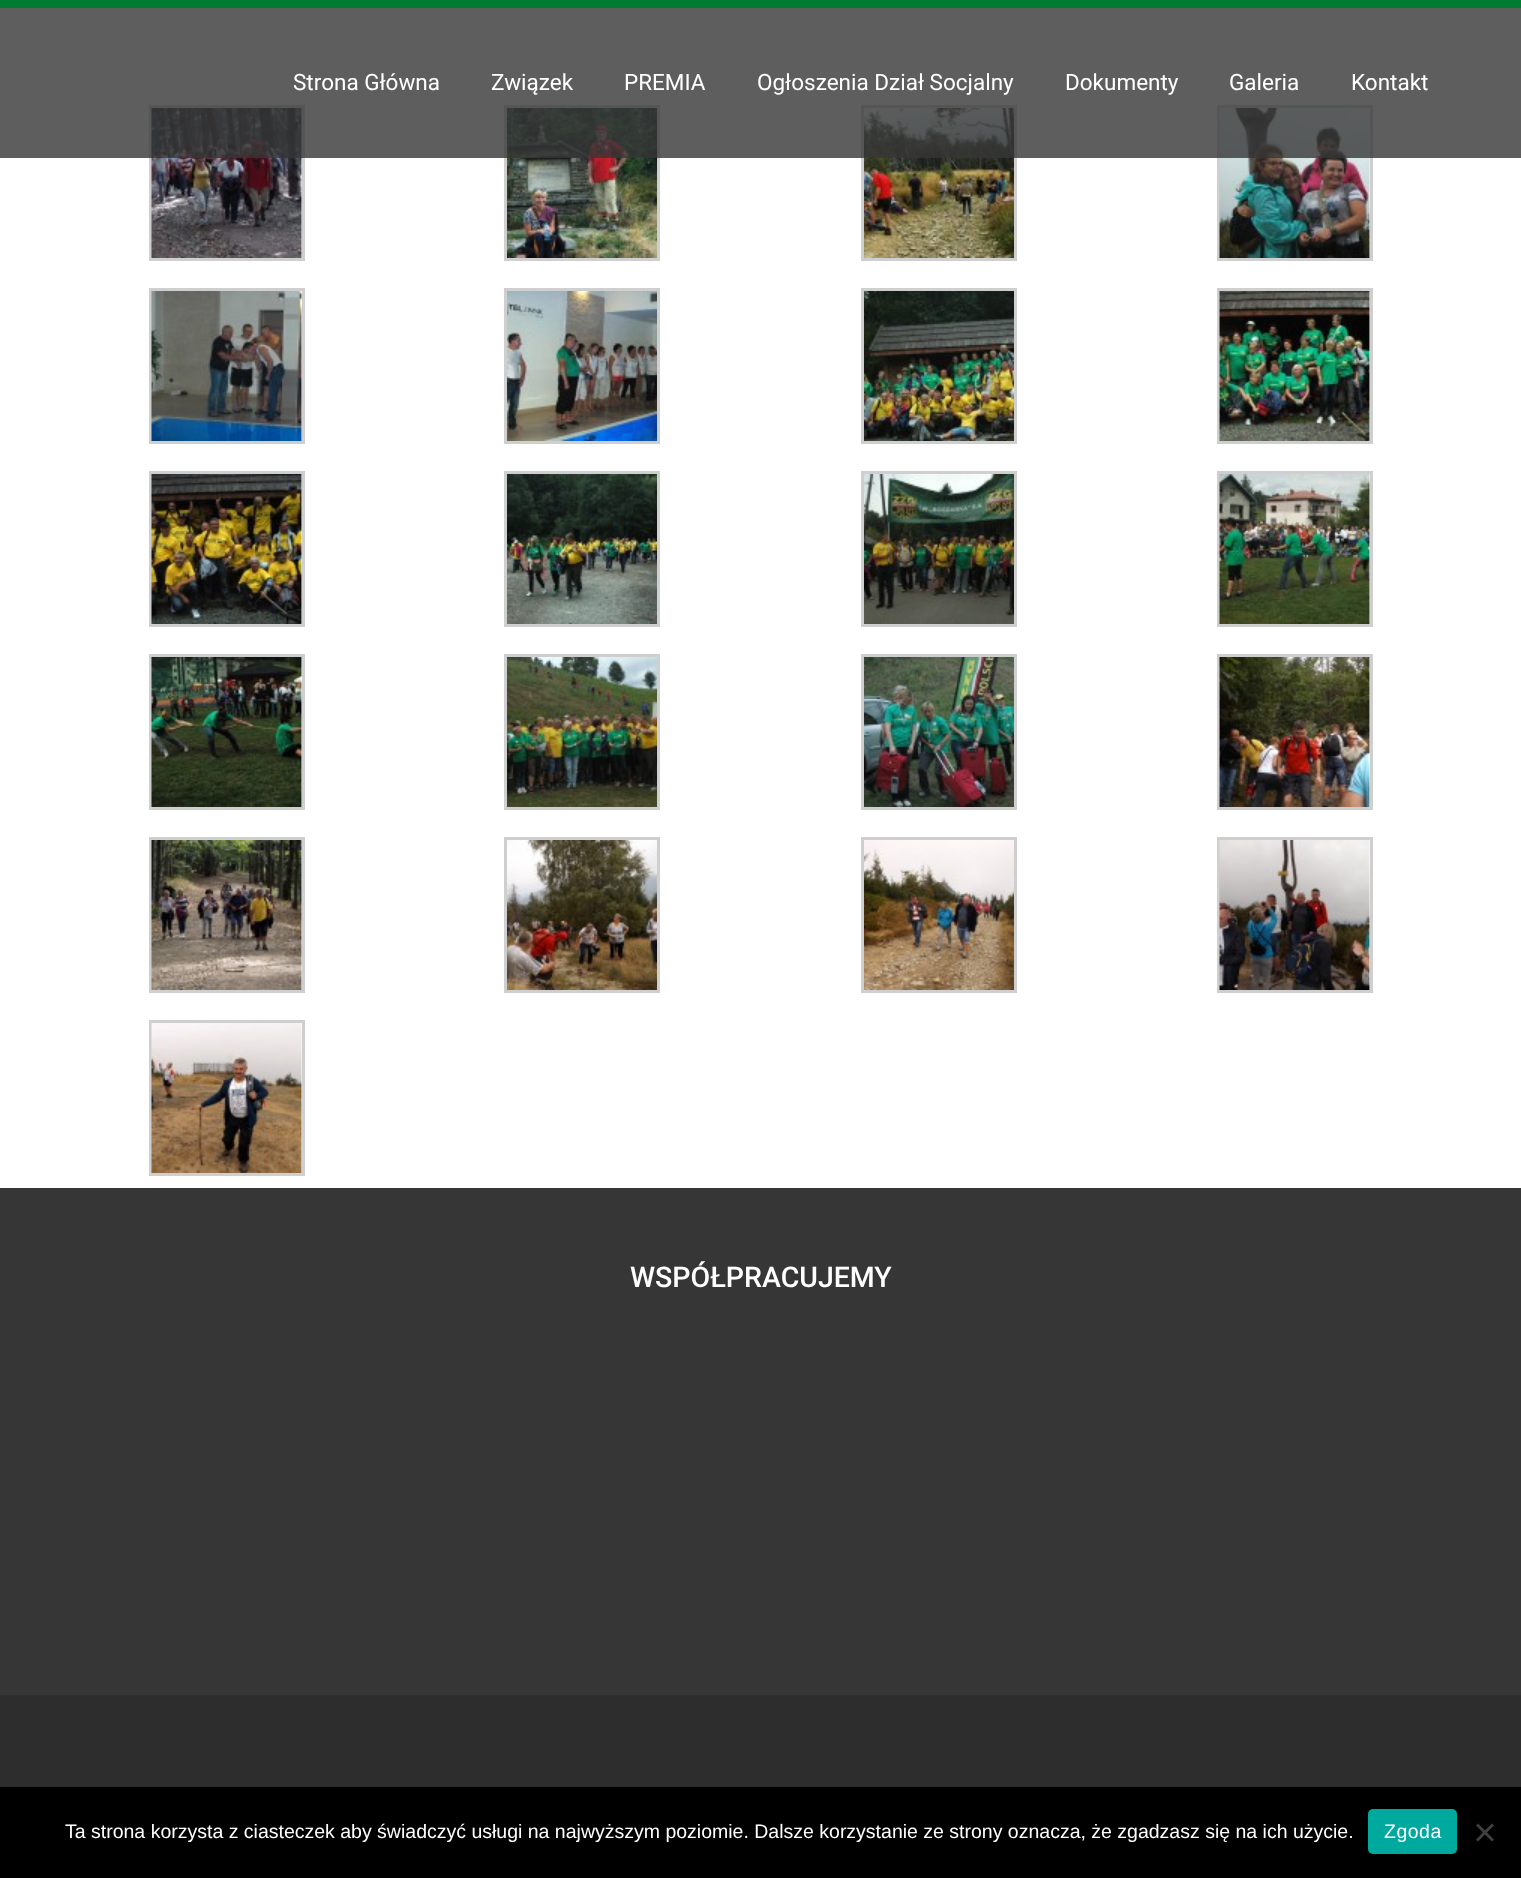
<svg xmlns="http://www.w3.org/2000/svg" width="1521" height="1878">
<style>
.a{font:22.5px Roboto;fill:#fff}
.b{font:500 28.5px Roboto;fill:#fff}
.c{font:19.5px Liberation Sans;fill:#fff}
.d{font:19.5px Liberation Sans;letter-spacing:0.5px;fill:#fff}
</style>
<rect width="100%" height="100%" fill="#fff"/>
<path fill="#007c32" d="M0 0h1521v8H0z"/>
<path fill="none" stroke="#cfcfcf" stroke-width="3" d="M150.5 106.5h153v153H150.5z"/>
<image href="1.png" x="151" y="108" width="151" height="150"/>
<path fill="none" stroke="#cfcfcf" stroke-width="3" d="M505.5 106.5h153v153H505.5z"/>
<image href="2.png" x="507" y="108" width="150" height="150"/>
<path fill="none" stroke="#cfcfcf" stroke-width="3" d="M862.5 106.5h153v153H862.5z"/>
<image href="3.png" x="864" y="108" width="150" height="150"/>
<path fill="none" stroke="#cfcfcf" stroke-width="3" d="M1218.5 106.5h153v153H1218.5z"/>
<image href="4.png" x="1219" y="108" width="151" height="150"/>
<path fill="#363636cc" d="M0 8h1521v150H0z"/>
<path fill="none" stroke="#cfcfcf" stroke-width="3" d="M150.5 289.5h153v153H150.5z"/>
<image href="5.png" x="151" y="291" width="151" height="150"/>
<path fill="none" stroke="#cfcfcf" stroke-width="3" d="M505.5 289.5h153v153H505.5z"/>
<image href="6.png" x="507" y="291" width="150" height="150"/>
<path fill="none" stroke="#cfcfcf" stroke-width="3" d="M862.5 289.5h153v153H862.5z"/>
<image href="7.png" x="864" y="291" width="150" height="150"/>
<path fill="none" stroke="#cfcfcf" stroke-width="3" d="M1218.5 289.5h153v153H1218.5z"/>
<image href="8.png" x="1219" y="291" width="151" height="150"/>
<path fill="none" stroke="#cfcfcf" stroke-width="3" d="M150.5 472.5h153v153H150.5z"/>
<image href="9.png" x="151" y="474" width="151" height="150"/>
<path fill="none" stroke="#cfcfcf" stroke-width="3" d="M505.5 472.5h153v153H505.5z"/>
<image href="10.png" x="507" y="474" width="150" height="150"/>
<path fill="none" stroke="#cfcfcf" stroke-width="3" d="M862.5 472.5h153v153H862.5z"/>
<image href="11.png" x="864" y="474" width="150" height="150"/>
<path fill="none" stroke="#cfcfcf" stroke-width="3" d="M1218.5 472.5h153v153H1218.5z"/>
<image href="12.png" x="1219" y="474" width="151" height="150"/>
<path fill="none" stroke="#cfcfcf" stroke-width="3" d="M150.5 655.5h153v153H150.5z"/>
<image href="13.png" x="151" y="657" width="151" height="150"/>
<path fill="none" stroke="#cfcfcf" stroke-width="3" d="M505.5 655.5h153v153H505.5z"/>
<image href="14.png" x="507" y="657" width="150" height="150"/>
<path fill="none" stroke="#cfcfcf" stroke-width="3" d="M862.5 655.5h153v153H862.5z"/>
<image href="15.png" x="864" y="657" width="150" height="150"/>
<path fill="none" stroke="#cfcfcf" stroke-width="3" d="M1218.5 655.5h153v153H1218.5z"/>
<image href="16.png" x="1219" y="657" width="151" height="150"/>
<path fill="none" stroke="#cfcfcf" stroke-width="3" d="M150.5 838.5h153v153H150.5z"/>
<image href="17.png" x="151" y="840" width="151" height="150"/>
<path fill="none" stroke="#cfcfcf" stroke-width="3" d="M505.5 838.5h153v153H505.5z"/>
<image href="18.png" x="507" y="840" width="150" height="150"/>
<path fill="none" stroke="#cfcfcf" stroke-width="3" d="M862.5 838.5h153v153H862.5z"/>
<image href="19.png" x="864" y="840" width="150" height="150"/>
<path fill="none" stroke="#cfcfcf" stroke-width="3" d="M1218.5 838.5h153v153H1218.5z"/>
<image href="20.png" x="1219" y="840" width="151" height="150"/>
<path fill="none" stroke="#cfcfcf" stroke-width="3" d="M150.5 1021.5h153v153H150.5z"/>
<image href="21.png" x="151" y="1023" width="151" height="150"/>
<path fill="#363636" d="M0 1188h1521v507H0z"/>
<path fill="#2d2d2d" d="M0 1695h1521v92H0z"/>
<path fill="#000" d="M0 1787h1521v91H0z"/>
<rect fill="#00a99d" x="1368" y="1809" width="89" height="45" rx="5"/>
<path fill="#404040" d="M1492 1823.5l2 2l-16 16l-2-2z"/>
<path fill="#404040" d="M1476 1825.5l2-2l16 16l-2 2z"/>
<text class="a" x="293" y="90">Strona Główna</text>
<text class="a" x="491" y="90">Związek</text>
<text class="a" x="624" y="90">PREMIA</text>
<text class="a" x="757" y="90">Ogłoszenia Dział Socjalny</text>
<text class="a" x="1065" y="90">Dokumenty</text>
<text class="a" x="1229" y="90">Galeria</text>
<text class="a" x="1351" y="90">Kontakt</text>
<text class="b" x="630" y="1287">WSPÓŁPRACUJEMY</text>
<text class="c" x="65" y="1838">Ta strona korzysta z ciasteczek aby świadczyć usługi na najwyższym poziomie. Dalsze korzystanie ze strony oznacza, że zgadzasz się na ich użycie.</text>
<text class="d" x="1384" y="1838">Zgoda</text>
</svg>
